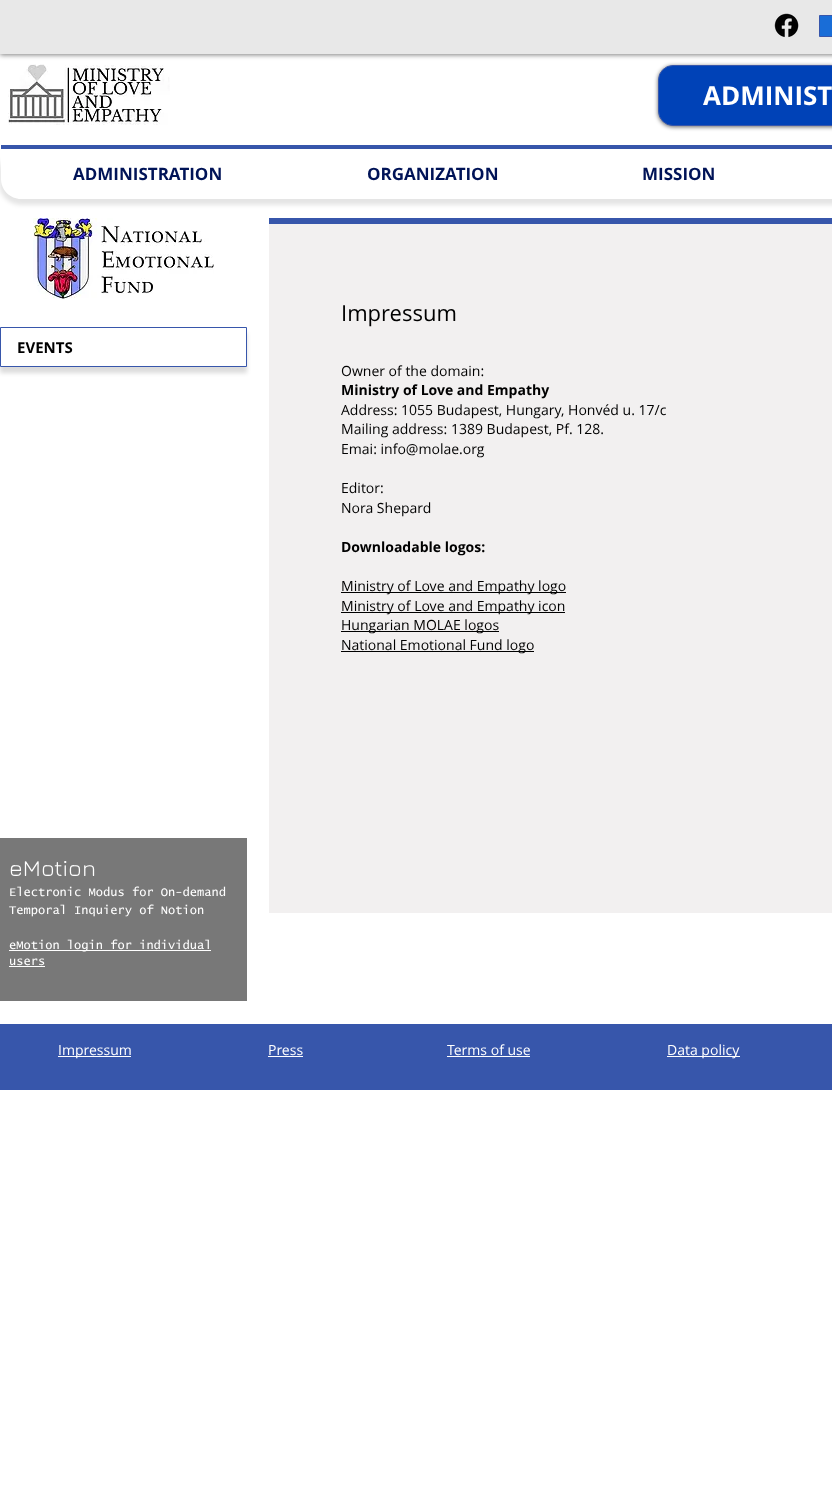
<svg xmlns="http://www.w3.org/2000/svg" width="832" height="1508">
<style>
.a{font:bold 26px Open Sans;fill:#fff}
.b{font:bold 17px Open Sans;fill:#001357}
.c{font:bold 15px Open Sans;fill:#000}
.d{font:22px Open Sans;fill:#000}
.e{font:14px Open Sans;fill:#000}
.f{font:bold 14px Open Sans;fill:#000}
.g{font:23px Jura;fill:#fff}
.h{font:12px 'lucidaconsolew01';fill:#fff}
.i{font:14px Open Sans;fill:#fff}
</style>
<defs>
<clipPath id="clip1"><path d="M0 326h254v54h-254zm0 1h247v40h-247z" clip-rule="evenodd"/></clipPath>
</defs>
<rect width="100%" height="100%" fill="#fff"/>
<path fill="#00000080" filter="blur(2.5px)" d="M0 1h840v54H0z"/>
<path fill="#e8e8e8" d="M0 0h832v54H0z"/>
<image href="1.png" x="774" y="13" width="25" height="25"/>
<path fill="#196dd7" stroke="#3756ab" d="M819.5 15.5h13v21H819.5z"/>
<image href="2.png" x="8" y="64" width="162" height="61"/>
<rect fill="#00000099" filter="blur(2px)" x="658" y="66" width="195" height="61" rx="15"/>
<rect fill="#0042b7" stroke="#3756ab" x="658.5" y="65.5" width="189" height="60" rx="14.5"/>
<path fill="#3756ab" d="M1 145h831v4H1z"/>
<rect fill="#0000001a" filter="blur(2px)" x="-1" y="151" width="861" height="54" rx="22"/>
<path fill="#fff" d="M1 149h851v30c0 11-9 20-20 20h-811c-11 0-20-9-20-20z"/>
<image href="3.png" x="33" y="218" width="181" height="81"/>
<g clip-path="url(#clip1)">
<path fill="#00000024" filter="blur(2px)" d="M0 333h247v40H0z"/>
</g>
<path fill="none" stroke="#3756ab" d="M0.5 327.5h246v39H0.5z"/>
<path fill="#f2f0f0" d="M269 224h563v689H269z"/>
<path fill="#3756ab" d="M269 218h563v6H269z"/>
<path fill="#000" d="M341 592h225v1H341z"/>
<path fill="#000" d="M341 612h224v1H341z"/>
<path fill="#000" d="M341 631h158v1H341z"/>
<path fill="#000" d="M341 651h193v1H341z"/>
<path fill="#787878" d="M0 838h247v163H0z"/>
<path fill="#fff" d="M9 950h202v1H9z"/>
<path fill="#fff" d="M9 966h36v1H9z"/>
<path fill="#3756ab" d="M0 1024h832v66H0z"/>
<path fill="#fff" d="M58 1056h73v1H58z"/>
<path fill="#fff" d="M268 1056h35v1H268z"/>
<path fill="#fff" d="M447 1056h83v1H447z"/>
<path fill="#fff" d="M667 1056h73v1H667z"/>
<text class="a" x="703" y="105">ADMINIST</text>
<text class="b" x="73" y="180">ADMINISTRATION</text>
<text class="b" x="367" y="180">ORGANIZATION</text>
<text class="b" x="642" y="180">MISSION</text>
<text class="c" x="17" y="353">EVENTS</text>
<text class="d" x="341" y="321">Impressum</text>
<text class="e" x="341" y="376">Owner of the domain:</text>
<text class="f" x="341" y="395">Ministry of Love and Empathy</text>
<text class="e" x="341" y="415">Address: 1055 Budapest, Hungary, Honvéd u. 17/c</text>
<text class="e" x="341" y="434">Mailing address: 1389 Budapest, Pf. 128.</text>
<text class="e" x="341" y="454">Emai: info@molae.org</text>
<text class="e" x="341" y="493">Editor:</text>
<text class="e" x="341" y="513">Nora Shepard</text>
<text class="f" x="341" y="552">Downloadable logos:</text>
<text class="e" x="341" y="591">Ministry of Love and Empathy logo</text>
<text class="e" x="341" y="611">Ministry of Love and Empathy icon</text>
<text class="e" x="341" y="630">Hungarian MOLAE logos</text>
<text class="e" x="341" y="650">National Emotional Fund logo</text>
<text class="g" x="9" y="876">eMotion</text>
<text class="h" x="9" y="896">Electronic Modus for On-demand</text>
<text class="h" x="9" y="914">Temporal Inquiery of Notion</text>
<text class="h" x="9" y="949">eMotion login for individual</text>
<text class="h" x="9" y="965">users</text>
<text class="i" x="58" y="1055">Impressum</text>
<text class="i" x="268" y="1055">Press</text>
<text class="i" x="447" y="1055">Terms of use</text>
<text class="i" x="667" y="1055">Data policy</text>
</svg>
